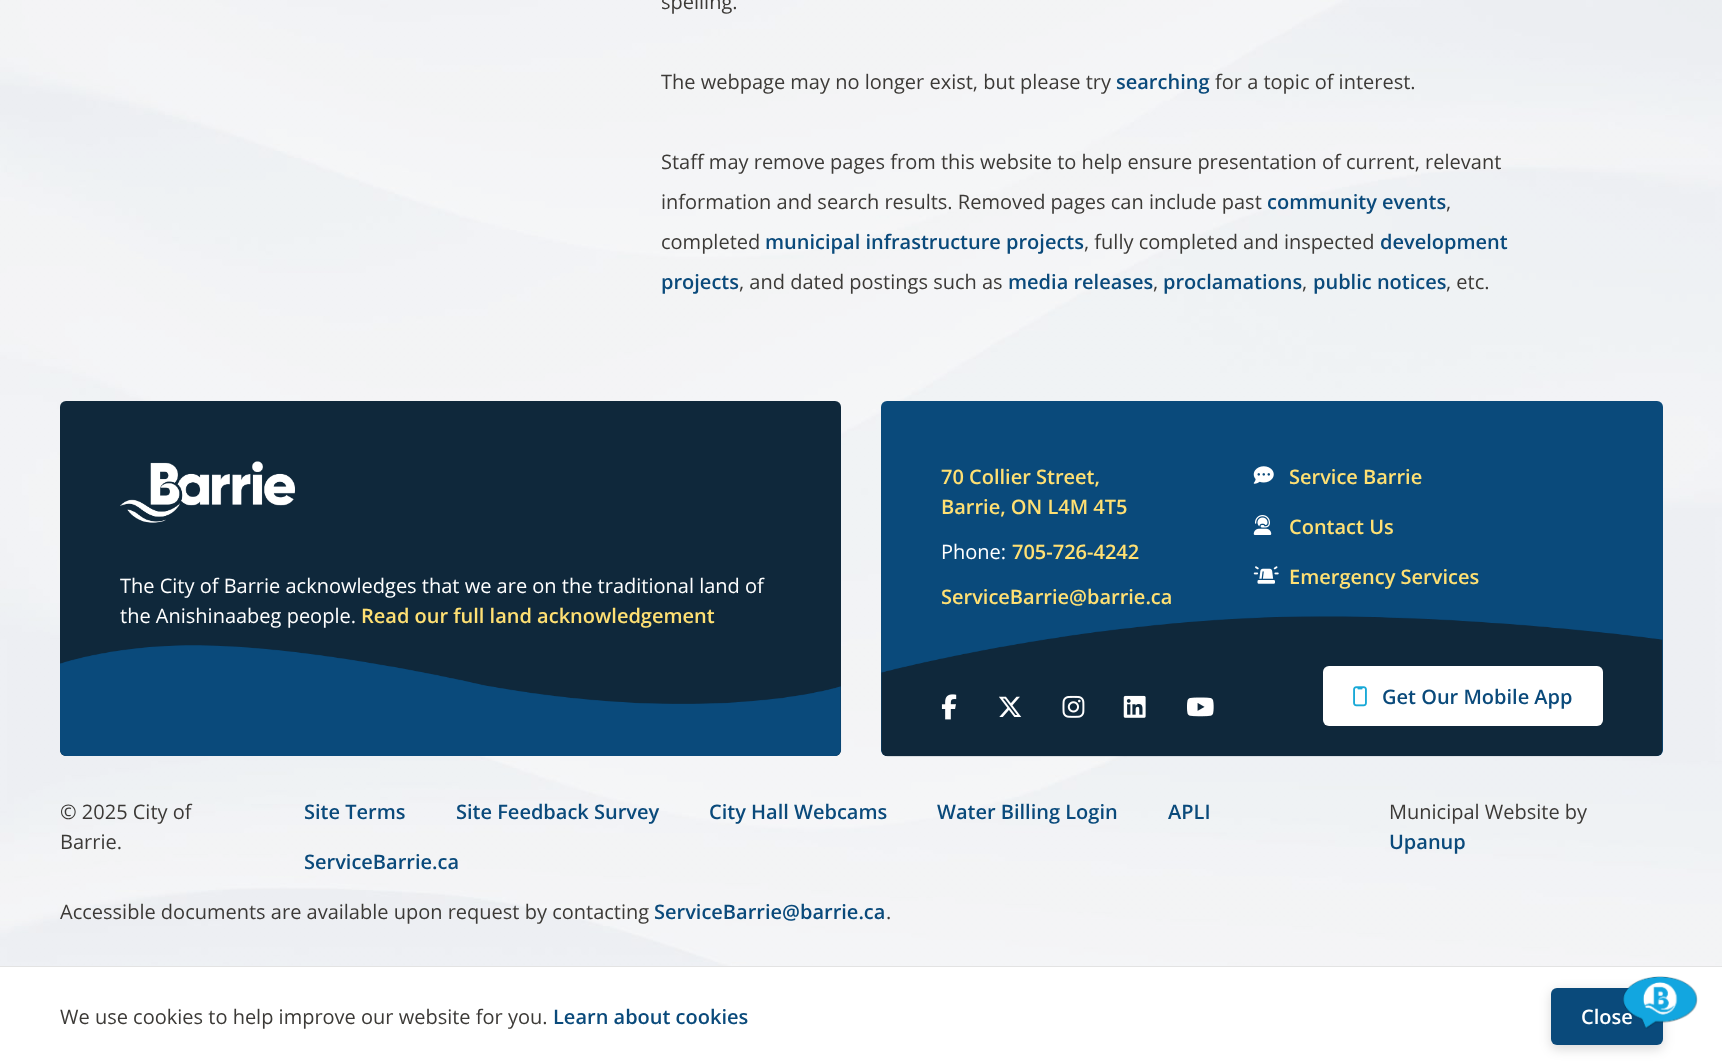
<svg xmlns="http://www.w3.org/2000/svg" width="1722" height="1064">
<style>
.a{font:20px Open Sans;fill:#3c3a37}
.b{font:600 20px Open Sans;fill:#0a4a7b}
.c{font:20px Open Sans;fill:#fff}
.d{font:600 20px Open Sans;fill:#ffe073}
.e{font:600 20px Open Sans;fill:#fff}
</style>
<rect width="100%" height="100%" fill="#fff"/>
<image href="1.png" x="0" y="0" width="1722" height="966"/>
<rect fill="#0f283b" x="60" y="401" width="781" height="355" rx="6"/>
<image href="2.png" x="60" y="645" width="782" height="111"/>
<image href="3.png" x="120" y="461" width="175" height="62"/>
<rect fill="#0a4a7b" x="881" y="401" width="782" height="355" rx="6"/>
<image href="4.png" x="881" y="616" width="782" height="141"/>
<image href="5.png" x="1253" y="466" width="21" height="18"/>
<image href="6.png" x="1253" y="515" width="19" height="20"/>
<image href="7.png" x="1253" y="566" width="26" height="18"/>
<image href="8.png" x="941" y="694" width="16" height="26"/>
<image href="9.png" x="999" y="696" width="23" height="21"/>
<image href="10.png" x="1062" y="695" width="23" height="23"/>
<image href="11.png" x="1123" y="695" width="23" height="23"/>
<image href="12.png" x="1187" y="697" width="27" height="20"/>
<rect fill="#fff" x="1323" y="666" width="280" height="60" rx="6"/>
<image href="13.png" x="1353" y="686" width="14" height="21"/>
<path fill="#e3e3e3" d="M0 966h1722v1H0z"/>
<rect fill="#00000026" filter="blur(6px)" x="1551" y="991" width="112" height="58" rx="6"/>
<rect fill="#0a4a7b" x="1551" y="988" width="112" height="57" rx="6"/>
<text class="a" x="661" y="9">spelling.</text>
<text class="a" x="661" y="89">The webpage may no longer exist, but please try</text>
<text class="b" x="1116" y="89">searching</text>
<text class="a" x="1215" y="89">for a topic of interest.</text>
<text class="a" x="661" y="169">Staff may remove pages from this website to help ensure presentation of current, relevant</text>
<text class="a" x="661" y="209">information and search results. Removed pages can include past</text>
<text class="b" x="1267" y="209">community events</text>
<text class="a" x="1446" y="209">,</text>
<text class="a" x="661" y="249">completed</text>
<text class="b" x="765" y="249">municipal infrastructure projects</text>
<text class="a" x="1084" y="249">, fully completed and inspected</text>
<text class="b" x="1380" y="249">development</text>
<text class="b" x="661" y="289">projects</text>
<text class="a" x="739" y="289">, and dated postings such as</text>
<text class="b" x="1008" y="289">media releases</text>
<text class="a" x="1153" y="289">,</text>
<text class="b" x="1163" y="289">proclamations</text>
<text class="a" x="1302" y="289">,</text>
<text class="b" x="1313" y="289">public notices</text>
<text class="a" x="1446" y="289">, etc.</text>
<text class="c" x="120" y="593">The City of Barrie acknowledges that we are on the traditional land of</text>
<text class="c" x="120" y="623">the Anishinaabeg people.</text>
<text class="d" x="361" y="623">Read our full land acknowledgement</text>
<text class="d" x="941" y="484">70 Collier Street,</text>
<text class="d" x="941" y="514">Barrie, ON L4M 4T5</text>
<text class="c" x="941" y="559">Phone:</text>
<text class="d" x="1012" y="559">705-726-4242</text>
<text class="d" x="941" y="604">ServiceBarrie@barrie.ca</text>
<text class="d" x="1289" y="484">Service Barrie</text>
<text class="d" x="1289" y="534">Contact Us</text>
<text class="d" x="1289" y="584">Emergency Services</text>
<text class="b" x="1382" y="704">Get Our Mobile App</text>
<text class="a" x="60" y="819">© 2025 City of</text>
<text class="a" x="60" y="849">Barrie.</text>
<text class="b" x="304" y="819">Site Terms</text>
<text class="b" x="456" y="819">Site Feedback Survey</text>
<text class="b" x="709" y="819">City Hall Webcams</text>
<text class="b" x="937" y="819">Water Billing Login</text>
<text class="b" x="1168" y="819">APLI</text>
<text class="b" x="304" y="869">ServiceBarrie.ca</text>
<text class="a" x="1389" y="819">Municipal Website by</text>
<text class="b" x="1389" y="849">Upanup</text>
<text class="a" x="60" y="919">Accessible documents are available upon request by contacting</text>
<text class="b" x="654" y="919">ServiceBarrie@barrie.ca</text>
<text class="a" x="886" y="919">.</text>
<text class="a" x="60" y="1024">We use cookies to help improve our website for you.</text>
<text class="b" x="553" y="1024">Learn about cookies</text>
<text class="e" x="1581" y="1024">Close</text>
<image href="14.png" x="1623" y="976" width="75" height="53"/>
</svg>
